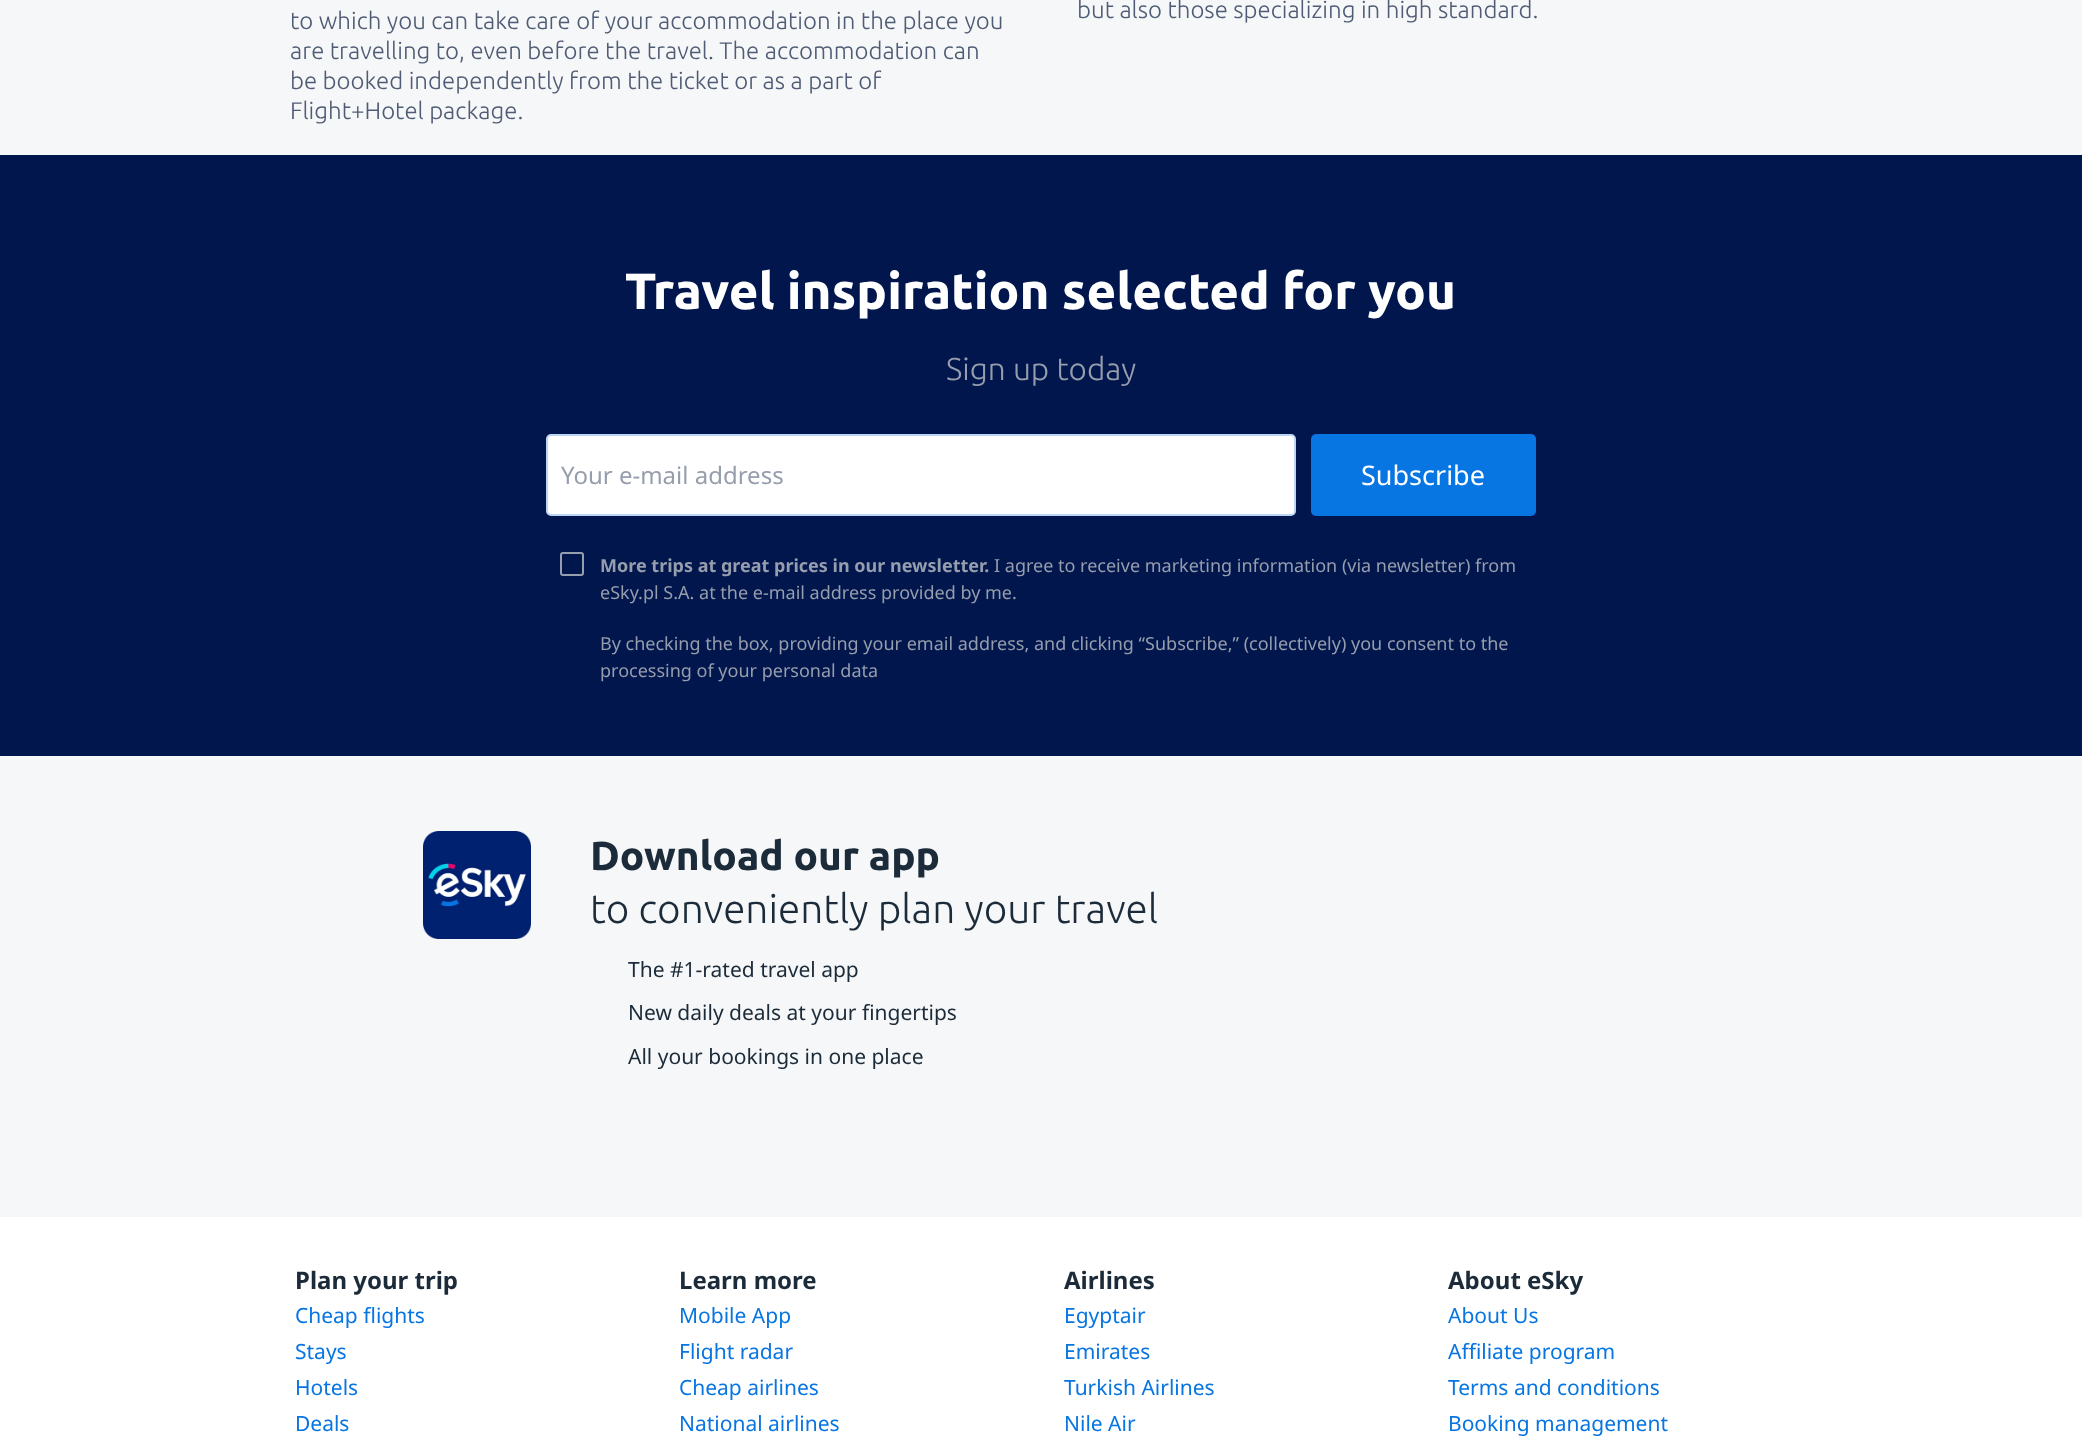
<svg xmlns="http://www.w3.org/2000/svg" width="2082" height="1449">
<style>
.a{font:300 24px Ubuntu;fill:#505c75}
.b{font:bold 51px Ubuntu;fill:#fff}
.c{font:300 31.5px Ubuntu;fill:#969dac}
.d{font:24px Noto Sans;fill:#969dac}
.e{font:27px Noto Sans;fill:#fff}
.f{font:bold 18px Noto Sans;fill:#969dac}
.g{font:18px Noto Sans;fill:#969dac}
.h{font:bold 40.5px Ubuntu;fill:#1c2b39}
.i{font:300 40.5px Ubuntu;fill:#1c2b39}
.j{font:21px Noto Sans;fill:#1c2b39}
.k{font:bold 24px Noto Sans;fill:#1c2b39}
.l{font:21px Noto Sans;fill:#0775e2}
</style>
<rect width="100%" height="100%" fill="#f6f7f8"/>
<path fill="#fff" d="M0 1217h2082v232H0z"/>
<path fill="#00164d" d="M0 155h2082v601H0z"/>
<rect fill="#fff" stroke="#bcd5f5" stroke-width="2" x="547" y="435" width="748" height="80" rx="4"/>
<rect fill="#0775e2" x="1311" y="434" width="225" height="82" rx="5"/>
<rect fill="none" stroke="#969dac" stroke-width="2" x="561" y="553" width="22" height="22" rx="2"/>
<image href="1.png" x="423" y="831" width="108" height="108"/>
<text class="a" x="290" y="29">to which you can take care of your accommodation in the place you</text>
<text class="a" x="290" y="59">are travelling to, even before the travel. The accommodation can</text>
<text class="a" x="290" y="89">be booked independently from the ticket or as a part of</text>
<text class="a" x="290" y="119">Flight+Hotel package.</text>
<text class="a" x="1077" y="18">but also those specializing in high standard.</text>
<text class="b" x="625" y="309">Travel inspiration selected for you</text>
<text class="c" x="946" y="380">Sign up today</text>
<text class="d" x="561" y="484">Your e-mail address</text>
<text class="e" x="1361" y="485">Subscribe</text>
<text class="f" x="600" y="572">More trips at great prices in our newsletter.</text>
<text class="g" x="994" y="572">I agree to receive marketing information (via newsletter) from</text>
<text class="g" x="600" y="599">eSky.pl S.A. at the e-mail address provided by me.</text>
<text class="g" x="600" y="650">By checking the box, providing your email address, and clicking “Subscribe,” (collectively) you consent to the</text>
<text class="g" x="600" y="677">processing of your personal data</text>
<text class="h" x="590" y="870">Download our app</text>
<text class="i" x="590" y="923">to conveniently plan your travel</text>
<text class="j" x="628" y="977">The #1-rated travel app</text>
<text class="j" x="628" y="1020">New daily deals at your fingertips</text>
<text class="j" x="628" y="1064">All your bookings in one place</text>
<text class="k" x="295" y="1289">Plan your trip</text>
<text class="l" x="295" y="1323">Cheap flights</text>
<text class="l" x="295" y="1359">Stays</text>
<text class="l" x="295" y="1395">Hotels</text>
<text class="l" x="295" y="1431">Deals</text>
<text class="k" x="679" y="1289">Learn more</text>
<text class="l" x="679" y="1323">Mobile App</text>
<text class="l" x="679" y="1359">Flight radar</text>
<text class="l" x="679" y="1395">Cheap airlines</text>
<text class="l" x="679" y="1431">National airlines</text>
<text class="k" x="1064" y="1289">Airlines</text>
<text class="l" x="1064" y="1323">Egyptair</text>
<text class="l" x="1064" y="1359">Emirates</text>
<text class="l" x="1064" y="1395">Turkish Airlines</text>
<text class="l" x="1064" y="1431">Nile Air</text>
<text class="k" x="1448" y="1289">About eSky</text>
<text class="l" x="1448" y="1323">About Us</text>
<text class="l" x="1448" y="1359">Affiliate program</text>
<text class="l" x="1448" y="1395">Terms and conditions</text>
<text class="l" x="1448" y="1431">Booking management</text>
</svg>
